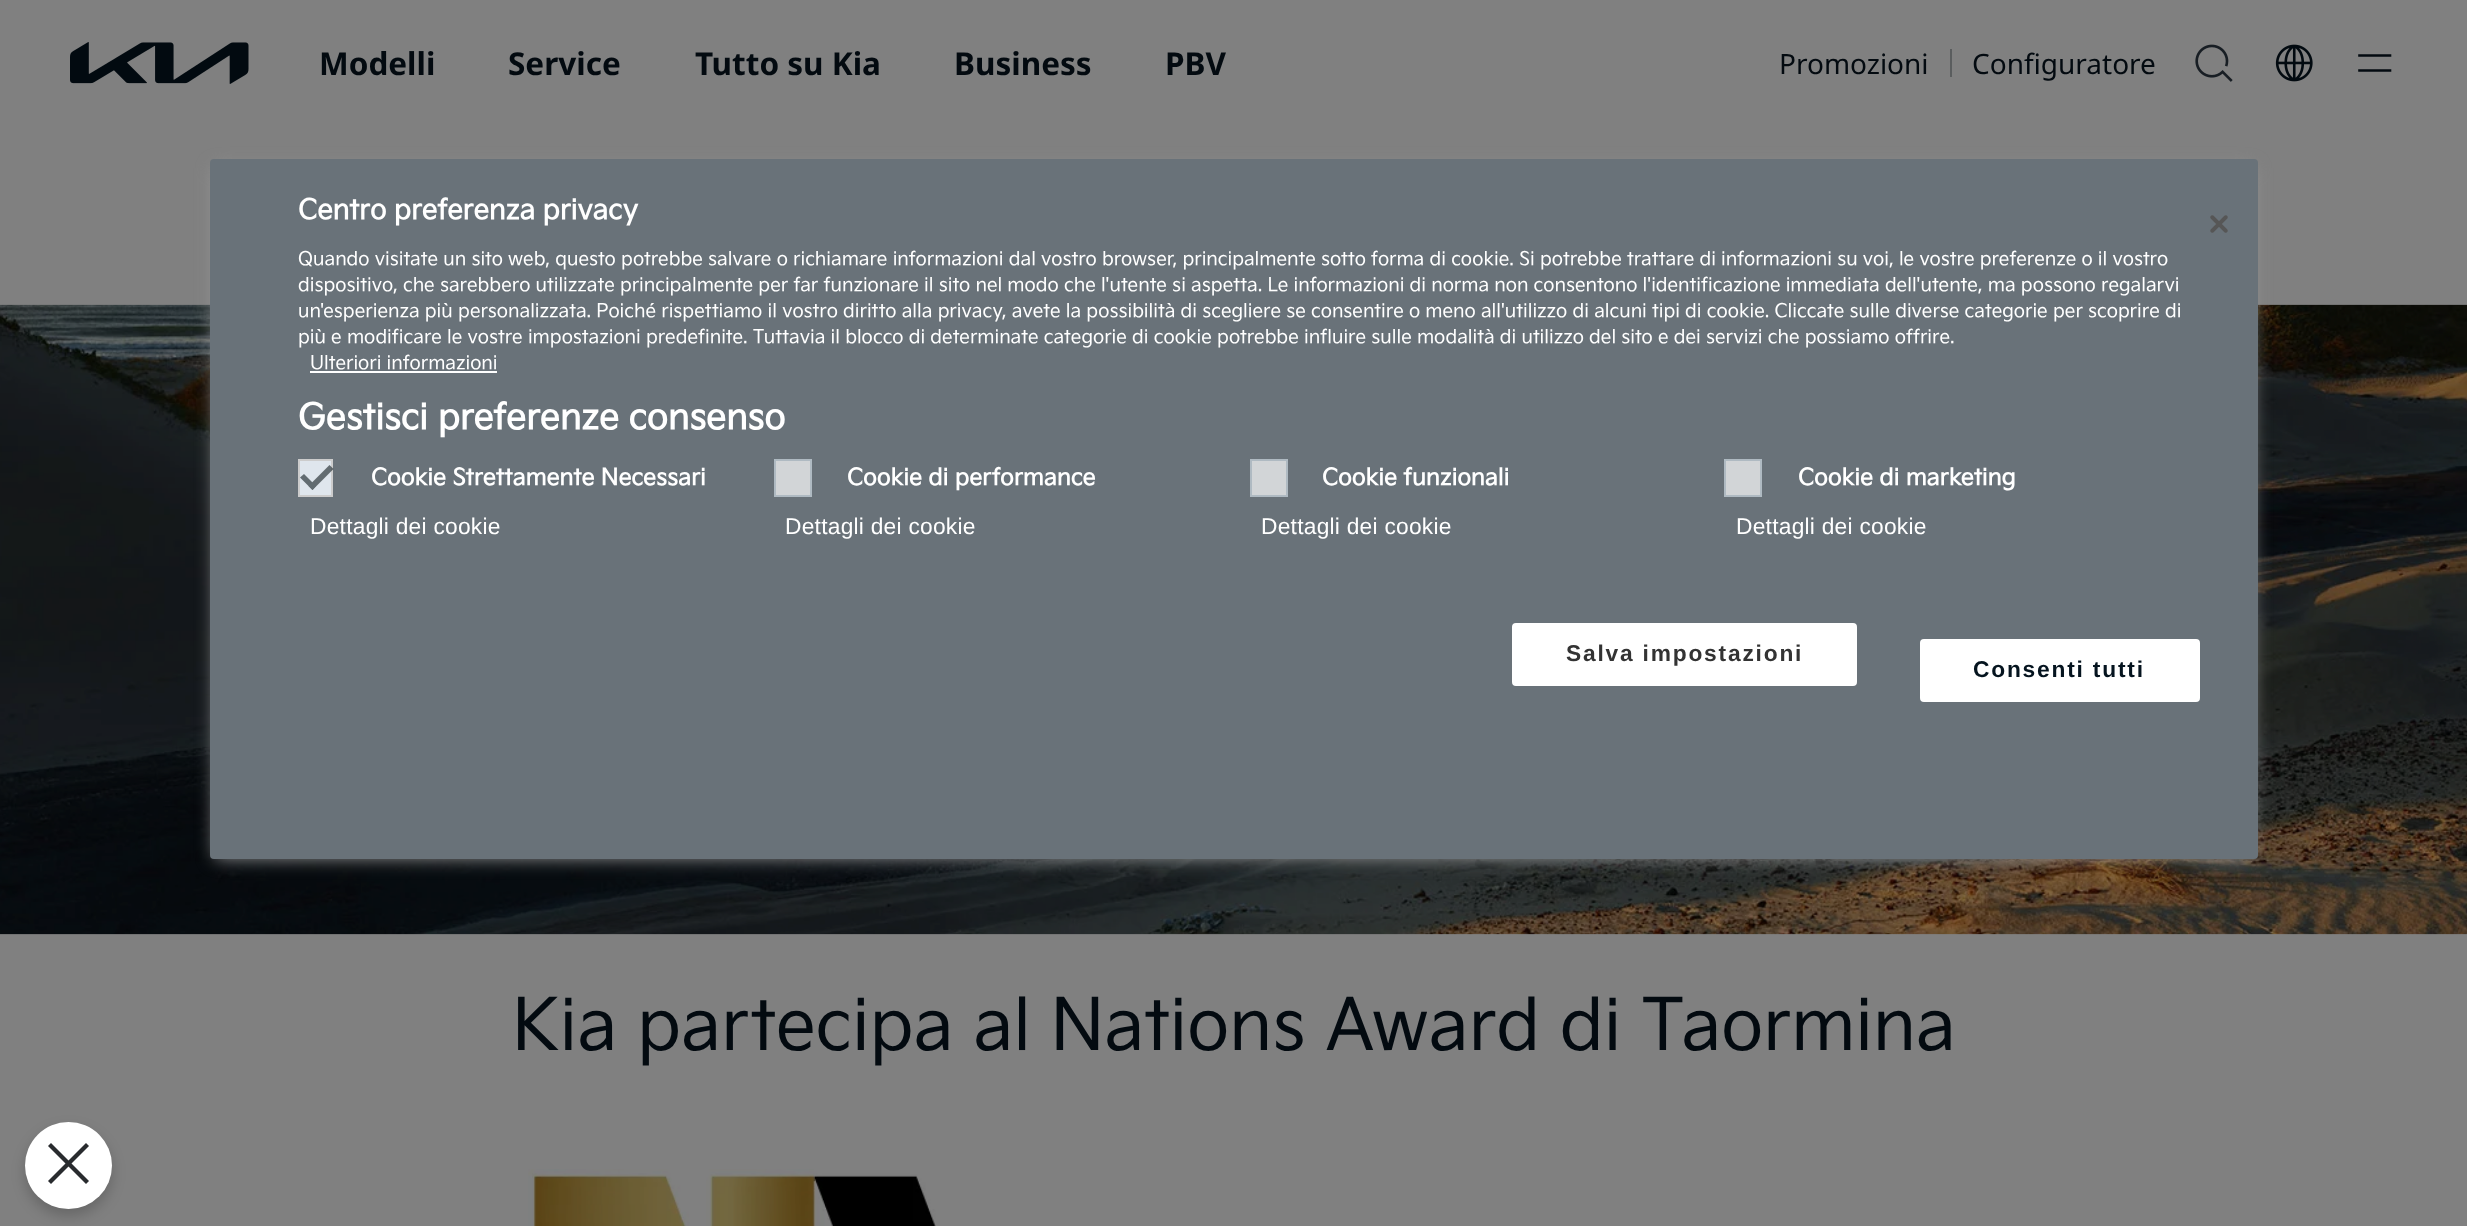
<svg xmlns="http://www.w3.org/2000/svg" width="2467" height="1226">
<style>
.a{font:bold 31.5px Noto Sans;fill:#030a10}
.b{font:28px Noto Sans;fill:#030a10}
.c{font:bold 27.25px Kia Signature;fill:#fff}
.d{font:18.66px Kia Signature;fill:#fff}
.e{font:bold 35px Kia Signature;fill:#fff}
.f{font:bold 22.75px Kia Signature;fill:#fff}
.g{font:22.75px Liberation Sans;letter-spacing:0.25px;fill:#fff}
.h{font:bold 22.75px Liberation Sans;letter-spacing:1.8px;fill:#333}
.i{font:bold 22.75px Liberation Sans;letter-spacing:1.8px;fill:#05141f}
.j{font:70px Kia Signature;fill:#030a10}
</style>
<rect width="100%" height="100%" fill="#808080"/>
<image href="1.png" x="70" y="42" width="179" height="42"/>
<path fill="#5a5d5e" d="M1950 49h2v28H1950z"/>
<image href="2.png" x="2195" y="44" width="38" height="38"/>
<image href="3.png" x="2275" y="44" width="38" height="38"/>
<path fill="none" stroke="#030a10" stroke-width="2.6" stroke-linecap="square" d="M2359.5 55.5h30.5m-30.5 15h30.5"/>
<image href="5.png" x="0" y="304" width="2467" height="631"/>
<path fill="#999" filter="blur(9px)" d="M215 168h2037v690H215z"/>
<rect fill="#697279" x="210" y="159" width="2048" height="700" rx="4"/>
<path fill="#fff" d="M310 371h187v2H310z"/>
<path fill="#dfe6ed" stroke="#ccc" stroke-width="2" d="M299 460h33v36H299z"/>
<path fill="#2d373cb3" d="M329.5 465l4 4l-21 21l-4-4z"/>
<path fill="#626c71" d="M304 474l12 12l-3.5 4l-12.5-12.5z"/>
<path fill="#d2d5d7" stroke="#afbac2" stroke-width="2" d="M775 460h36v36H775z"/>
<path fill="#d2d5d7" stroke="#afbac2" stroke-width="2" d="M1251 460h36v36H1251z"/>
<path fill="#d2d5d7" stroke="#afbac2" stroke-width="2" d="M1725 460h36v36H1725z"/>
<rect fill="#fff" stroke="#fff" stroke-width="2" x="1513" y="624" width="343" height="61" rx="3"/>
<rect fill="#fff" stroke="#fff" stroke-width="2" x="1921" y="640" width="278" height="61" rx="3"/>
<image href="4.png" x="2210" y="215" width="18" height="18"/>
<rect fill="#00000033" filter="blur(7px)" x="25" y="1129" width="87" height="87" rx="43.5"/>
<circle fill="#fff" cx="68.5" cy="1165.5" r="43.5"/>
<path fill="#292b2e" d="M48 1146l38 38l3-3l-38-38z"/>
<path fill="#292b2e" d="M89 1146l-38 38l-3-3l38-38z"/>
<image href="6.png" x="528" y="1169" width="408" height="57"/>
<text class="a" x="319" y="75">Modelli</text>
<text class="a" x="508" y="75">Service</text>
<text class="a" x="695" y="75">Tutto su Kia</text>
<text class="a" x="954" y="75">Business</text>
<text class="a" x="1165" y="75">PBV</text>
<text class="b" x="1779" y="74">Promozioni</text>
<text class="b" x="1972" y="74">Configuratore</text>
<text class="c" x="298" y="219">Centro preferenza privacy</text>
<text class="d" x="298" y="265">Quando visitate un sito web, questo potrebbe salvare o richiamare informazioni dal vostro browser, principalmente sotto forma di cookie. Si potrebbe trattare di informazioni su voi, le vostre preferenze o il vostro</text>
<text class="d" x="298" y="291">dispositivo, che sarebbero utilizzate principalmente per far funzionare il sito nel modo che l'utente si aspetta. Le informazioni di norma non consentono l'identificazione immediata dell'utente, ma possono regalarvi</text>
<text class="d" x="298" y="317">un'esperienza più personalizzata. Poiché rispettiamo il vostro diritto alla privacy, avete la possibilità di scegliere se consentire o meno all'utilizzo di alcuni tipi di cookie. Cliccate sulle diverse categorie per scoprire di</text>
<text class="d" x="298" y="343">più e modificare le vostre impostazioni predefinite. Tuttavia il blocco di determinate categorie di cookie potrebbe influire sulle modalità di utilizzo del sito e dei servizi che possiamo offrire.</text>
<text class="d" x="310" y="369">Ulteriori informazioni</text>
<text class="e" x="298" y="429">Gestisci preferenze consenso</text>
<text class="f" x="371" y="485">Cookie Strettamente Necessari</text>
<text class="g" x="310" y="534">Dettagli dei cookie</text>
<text class="f" x="847" y="485">Cookie di performance</text>
<text class="g" x="785" y="534">Dettagli dei cookie</text>
<text class="f" x="1322" y="485">Cookie funzionali</text>
<text class="g" x="1261" y="534">Dettagli dei cookie</text>
<text class="f" x="1798" y="485">Cookie di marketing</text>
<text class="g" x="1736" y="534">Dettagli dei cookie</text>
<text class="h" x="1566" y="661">Salva impostazioni</text>
<text class="i" x="1973" y="677">Consenti tutti</text>
<text class="j" x="512" y="1049">Kia partecipa al Nations Award di Taormina</text>
</svg>
